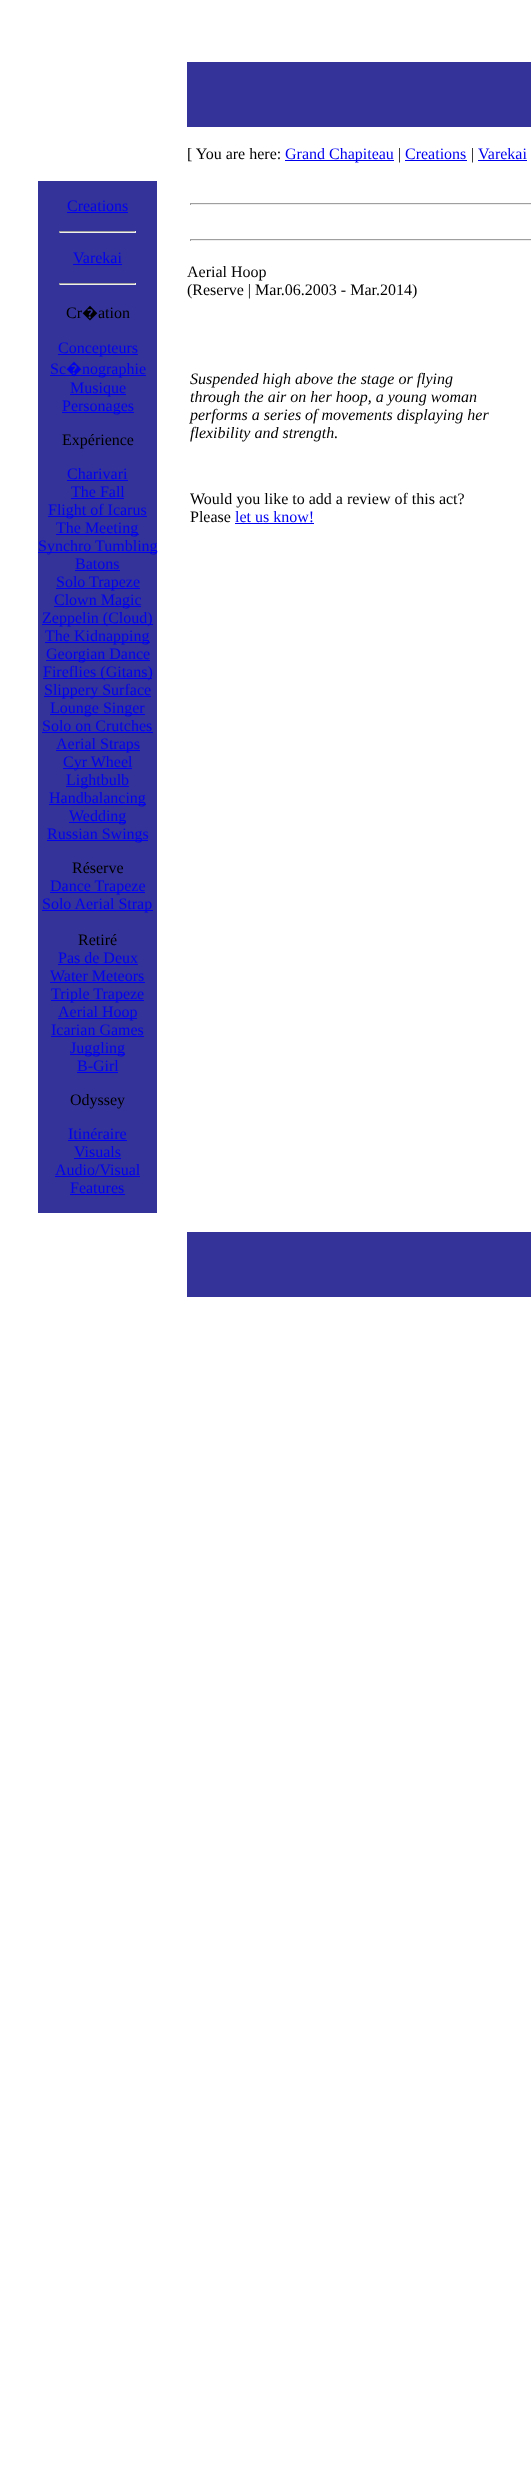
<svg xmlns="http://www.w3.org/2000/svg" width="531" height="2485">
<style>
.a{font:16px Liberation Serif;fill:#000}
.b{font:16px Liberation Serif;fill:#00e}
.c{font:16px Noto Sans;fill:#000}
.d{font:16px Noto Sans;fill:#00e}
.e{font:italic 16px Liberation Serif;fill:#000}
</style>
<rect width="100%" height="100%" fill="#fff"/>
<path fill="#339" d="M187 62h344v65H187z"/>
<path fill="#00e" d="M285 160h109v1H285z"/>
<path fill="#00e" d="M405 160h62v1H405z"/>
<path fill="#00e" d="M478 160h49v1H478z"/>
<path fill="#339" d="M38 181h119v1032H38z"/>
<path fill="#00e" d="M67 212h61v1H67z"/>
<path fill="#9f9f9f" d="M59 231h77v1H59z"/>
<path fill="#eee" d="M135 231h1v2H135z"/>
<path fill="#eee" d="M59 232h77v1H59z"/>
<path fill="#9f9f9f" d="M59 231h1v2H59z"/>
<path fill="#00e" d="M73 264h49v1H73z"/>
<path fill="#9f9f9f" d="M59 283h77v1H59z"/>
<path fill="#eee" d="M135 283h1v2H135z"/>
<path fill="#eee" d="M59 284h77v1H59z"/>
<path fill="#9f9f9f" d="M59 283h1v2H59z"/>
<path fill="#00e" d="M58 354h80v1H58z"/>
<path fill="#00e" d="M50 375h96v1H50z"/>
<path fill="#00e" d="M70 394h56v1H70z"/>
<path fill="#00e" d="M62 412h72v1H62z"/>
<path fill="#00e" d="M67 480h61v1H67z"/>
<path fill="#00e" d="M71 498h53v1H71z"/>
<path fill="#00e" d="M48 516h99v1H48z"/>
<path fill="#00e" d="M56 534h83v1H56z"/>
<path fill="#00e" d="M38 552h119v1H38z"/>
<path fill="#00e" d="M75 570h45v1H75z"/>
<path fill="#00e" d="M56 588h84v1H56z"/>
<path fill="#00e" d="M54 606h87v1H54z"/>
<path fill="#00e" d="M42 624h111v1H42z"/>
<path fill="#00e" d="M45 642h105v1H45z"/>
<path fill="#00e" d="M46 660h104v1H46z"/>
<path fill="#00e" d="M43 678h109v1H43z"/>
<path fill="#00e" d="M44 696h107v1H44z"/>
<path fill="#00e" d="M50 714h95v1H50z"/>
<path fill="#00e" d="M42 732h111v1H42z"/>
<path fill="#00e" d="M56 750h84v1H56z"/>
<path fill="#00e" d="M63 768h69v1H63z"/>
<path fill="#00e" d="M66 786h63v1H66z"/>
<path fill="#00e" d="M49 804h97v1H49z"/>
<path fill="#00e" d="M69 822h57v1H69z"/>
<path fill="#00e" d="M47 840h101v1H47z"/>
<path fill="#00e" d="M50 892h95v1H50z"/>
<path fill="#00e" d="M42 910h111v1H42z"/>
<path fill="#00e" d="M58 964h80v1H58z"/>
<path fill="#00e" d="M50 982h95v1H50z"/>
<path fill="#00e" d="M51 1000h93v1H51z"/>
<path fill="#00e" d="M58 1018h79v1H58z"/>
<path fill="#00e" d="M51 1036h93v1H51z"/>
<path fill="#00e" d="M70 1054h55v1H70z"/>
<path fill="#00e" d="M77 1072h41v1H77z"/>
<path fill="#00e" d="M68 1140h59v1H68z"/>
<path fill="#00e" d="M74 1158h47v1H74z"/>
<path fill="#00e" d="M55 1176h85v1H55z"/>
<path fill="#00e" d="M70 1194h55v1H70z"/>
<path fill="#9f9f9f" d="M190 203h341v1H190z"/>
<path fill="#eee" d="M190 204h341v1H190z"/>
<path fill="#9f9f9f" d="M190 203h1v2H190z"/>
<path fill="#9f9f9f" d="M190 239h341v1H190z"/>
<path fill="#eee" d="M190 240h341v1H190z"/>
<path fill="#9f9f9f" d="M190 239h1v2H190z"/>
<path fill="#00e" d="M235 523h79v1H235z"/>
<path fill="#339" d="M187 1232h344v65H187z"/>
<text class="a" x="187" y="159">[ You are here:</text>
<text class="b" x="285" y="159">Grand Chapiteau</text>
<text class="a" x="398" y="159">|</text>
<text class="b" x="405" y="159">Creations</text>
<text class="a" x="471" y="159">|</text>
<text class="b" x="478" y="159">Varekai</text>
<text class="b" x="67" y="211">Creations</text>
<text class="b" x="73" y="263">Varekai</text>
<text class="a" x="66" y="318">Cr</text>
<text class="c" x="82" y="318">�</text>
<text class="a" x="98" y="318">ation</text>
<text class="b" x="58" y="353">Concepteurs</text>
<text class="b" x="50" y="374">Sc</text>
<text class="d" x="66" y="374">�</text>
<text class="b" x="82" y="374">nographie</text>
<text class="b" x="70" y="393">Musique</text>
<text class="b" x="62" y="411">Personages</text>
<text class="a" x="62" y="445">Expérience</text>
<text class="b" x="67" y="479">Charivari</text>
<text class="b" x="71" y="497">The Fall</text>
<text class="b" x="48" y="515">Flight of Icarus</text>
<text class="b" x="56" y="533">The Meeting</text>
<text class="b" x="38" y="551">Synchro Tumbling</text>
<text class="b" x="75" y="569">Batons</text>
<text class="b" x="56" y="587">Solo Trapeze</text>
<text class="b" x="54" y="605">Clown Magic</text>
<text class="b" x="42" y="623">Zeppelin (Cloud)</text>
<text class="b" x="45" y="641">The Kidnapping</text>
<text class="b" x="46" y="659">Georgian Dance</text>
<text class="b" x="43" y="677">Fireflies (Gitans)</text>
<text class="b" x="44" y="695">Slippery Surface</text>
<text class="b" x="50" y="713">Lounge Singer</text>
<text class="b" x="42" y="731">Solo on Crutches</text>
<text class="b" x="56" y="749">Aerial Straps</text>
<text class="b" x="63" y="767">Cyr Wheel</text>
<text class="b" x="66" y="785">Lightbulb</text>
<text class="b" x="49" y="803">Handbalancing</text>
<text class="b" x="69" y="821">Wedding</text>
<text class="b" x="47" y="839">Russian Swings</text>
<text class="a" x="72" y="873">Réserve</text>
<text class="b" x="50" y="891">Dance Trapeze</text>
<text class="b" x="42" y="909">Solo Aerial Strap</text>
<text class="a" x="78" y="945">Retiré</text>
<text class="b" x="58" y="963">Pas de Deux</text>
<text class="b" x="50" y="981">Water Meteors</text>
<text class="b" x="51" y="999">Triple Trapeze</text>
<text class="b" x="58" y="1017">Aerial Hoop</text>
<text class="b" x="51" y="1035">Icarian Games</text>
<text class="b" x="70" y="1053">Juggling</text>
<text class="b" x="77" y="1071">B-Girl</text>
<text class="a" x="70" y="1105">Odyssey</text>
<text class="b" x="68" y="1139">Itinéraire</text>
<text class="b" x="74" y="1157">Visuals</text>
<text class="b" x="55" y="1175">Audio/Visual</text>
<text class="b" x="70" y="1193">Features</text>
<text class="a" x="187" y="277">Aerial Hoop</text>
<text class="a" x="187" y="295">(Reserve | Mar.06.2003 - Mar.2014)</text>
<text class="e" x="190" y="384">Suspended high above the stage or flying</text>
<text class="e" x="190" y="402">through the air on her hoop, a young woman</text>
<text class="e" x="190" y="420">performs a series of movements displaying her</text>
<text class="e" x="190" y="438">flexibility and strength.</text>
<text class="a" x="190" y="504">Would you like to add a review of this act?</text>
<text class="a" x="190" y="522">Please</text>
<text class="b" x="235" y="522">let us know!</text>
</svg>
